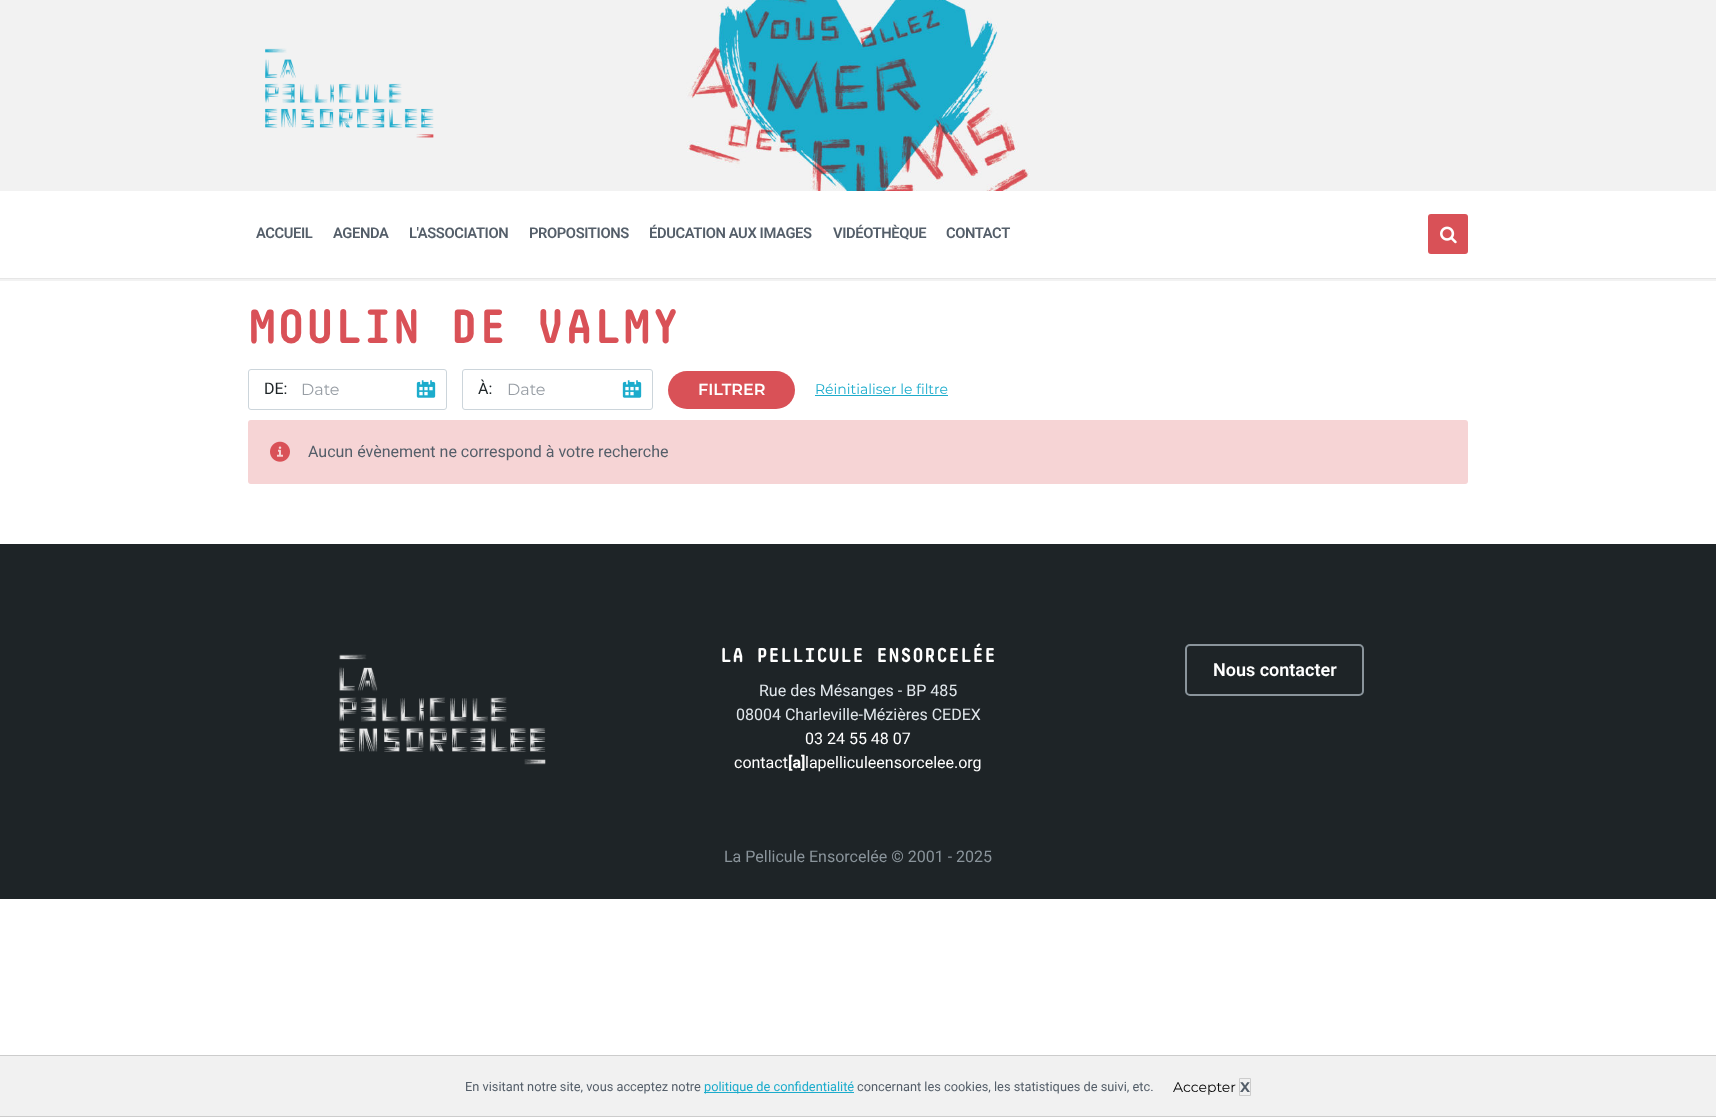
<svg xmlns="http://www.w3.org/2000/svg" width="1716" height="1117">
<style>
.a{font:600 14.75px Roboto;letter-spacing:-0.4px;fill:#545e69}
.b{font:bold 48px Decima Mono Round;fill:#d95157}
.c{font:16px Roboto;fill:#1e2427}
.d{font:16px Montserrat;fill:#989ea5}
.e{font:600 16px Montserrat;fill:#fff}
.f{font:14px Montserrat;fill:#1caccc}
.g{font:16px Roboto;fill:#545e69}
.h{font:bold 20px Decima Mono Round;fill:#fff}
.i{font:16px Roboto;fill:#e1e7ec}
.j{font:16px Roboto;fill:#fff}
.k{font:bold 16px Roboto;fill:#fff}
.l{font:600 18px Roboto;fill:#fff}
.m{font:16px Roboto;fill:#8a949b}
.n{font:12.8px Roboto;fill:#545e69}
.o{font:12.8px Roboto;fill:#1caccc}
.p{font:14px Montserrat;fill:#000}
.q{font:bold 14px Montserrat;fill:#545e69}
</style>
<rect width="100%" height="100%" fill="#fff"/>
<path fill="none" stroke="#f2f2f2" stroke-width="2" d="M-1 190h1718v90H-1z"/>
<image href="1.png" x="0" y="0" width="1716" height="191"/>
<image href="2.png" x="265" y="48" width="169" height="90"/>
<path fill="#e6e6e6" d="M0 278h1716v1H0z"/>
<rect fill="#d95157" x="1428" y="214" width="40" height="40" rx="3"/>
<image href="3.png" x="1440" y="226" width="17" height="18"/>
<rect fill="none" stroke="#ccd5db" x="248.5" y="369.5" width="198" height="40" rx="2.5"/>
<image href="4.png" x="416" y="380" width="20" height="18"/>
<rect fill="none" stroke="#ccd5db" x="462.5" y="369.5" width="190" height="40" rx="2.5"/>
<image href="4.png" x="622" y="380" width="20" height="18"/>
<rect fill="#d95157" x="668" y="371" width="127" height="38" rx="19"/>
<path fill="#1caccc" d="M815 395h133v1H815z"/>
<rect fill="#f6d4d5" x="248" y="420" width="1220" height="64" rx="3"/>
<image href="5.png" x="270" y="441" width="20" height="21"/>
<path fill="#1e2427" d="M0 544h1716v355H0z"/>
<image href="6.png" x="339" y="654" width="207" height="111"/>
<rect fill="none" stroke="#8a949b" stroke-width="2" x="1186" y="645" width="177" height="50" rx="4"/>
<path fill="#f1f1f1" stroke="#ccc" d="M-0.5 1055.5h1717v61H-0.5z"/>
<path fill="#1caccc" d="M704 1092h150v1H704z"/>
<path fill="none" stroke="#ccc" d="M1239.5 1078.5h11v17H1239.5z"/>
<text class="a" x="256" y="238">ACCUEIL</text>
<text class="a" x="333" y="238">AGENDA</text>
<text class="a" x="409" y="238">L'ASSOCIATION</text>
<text class="a" x="529" y="238">PROPOSITIONS</text>
<text class="a" x="649" y="238">ÉDUCATION AUX IMAGES</text>
<text class="a" x="833" y="238">VIDÉOTHÈQUE</text>
<text class="a" x="946" y="238">CONTACT</text>
<text class="b" x="248" y="343">MOULIN DE VALMY</text>
<text class="c" x="264" y="394">DE:</text>
<text class="d" x="301" y="395">Date</text>
<text class="c" x="478" y="394">À:</text>
<text class="d" x="507" y="395">Date</text>
<text class="e" x="698" y="395">FILTRER</text>
<text class="f" x="815" y="394">Réinitialiser le filtre</text>
<text class="g" x="308" y="457">Aucun évènement ne correspond à votre recherche</text>
<text class="h" x="720" y="662">LA PELLICULE ENSORCELÉE</text>
<text class="i" x="759" y="696">Rue des Mésanges - BP 485</text>
<text class="i" x="736" y="720">08004 Charleville-Mézières CEDEX</text>
<text class="j" x="805" y="744">03 24 55 48 07</text>
<text class="j" x="734" y="768">contact</text>
<text class="k" x="788" y="768">[a]</text>
<text class="j" x="805" y="768">lapelliculeensorcelee.org</text>
<text class="l" x="1213" y="676">Nous contacter</text>
<text class="m" x="724" y="862">La Pellicule Ensorcelée © 2001 - 2025</text>
<text class="n" x="465" y="1091">En visitant notre site, vous acceptez notre</text>
<text class="o" x="704" y="1091">politique de confidentialité</text>
<text class="n" x="857" y="1091">concernant les cookies, les statistiques de suivi, etc.</text>
<text class="p" x="1173" y="1092">Accepter</text>
<text class="q" x="1240" y="1092">X</text>
</svg>
